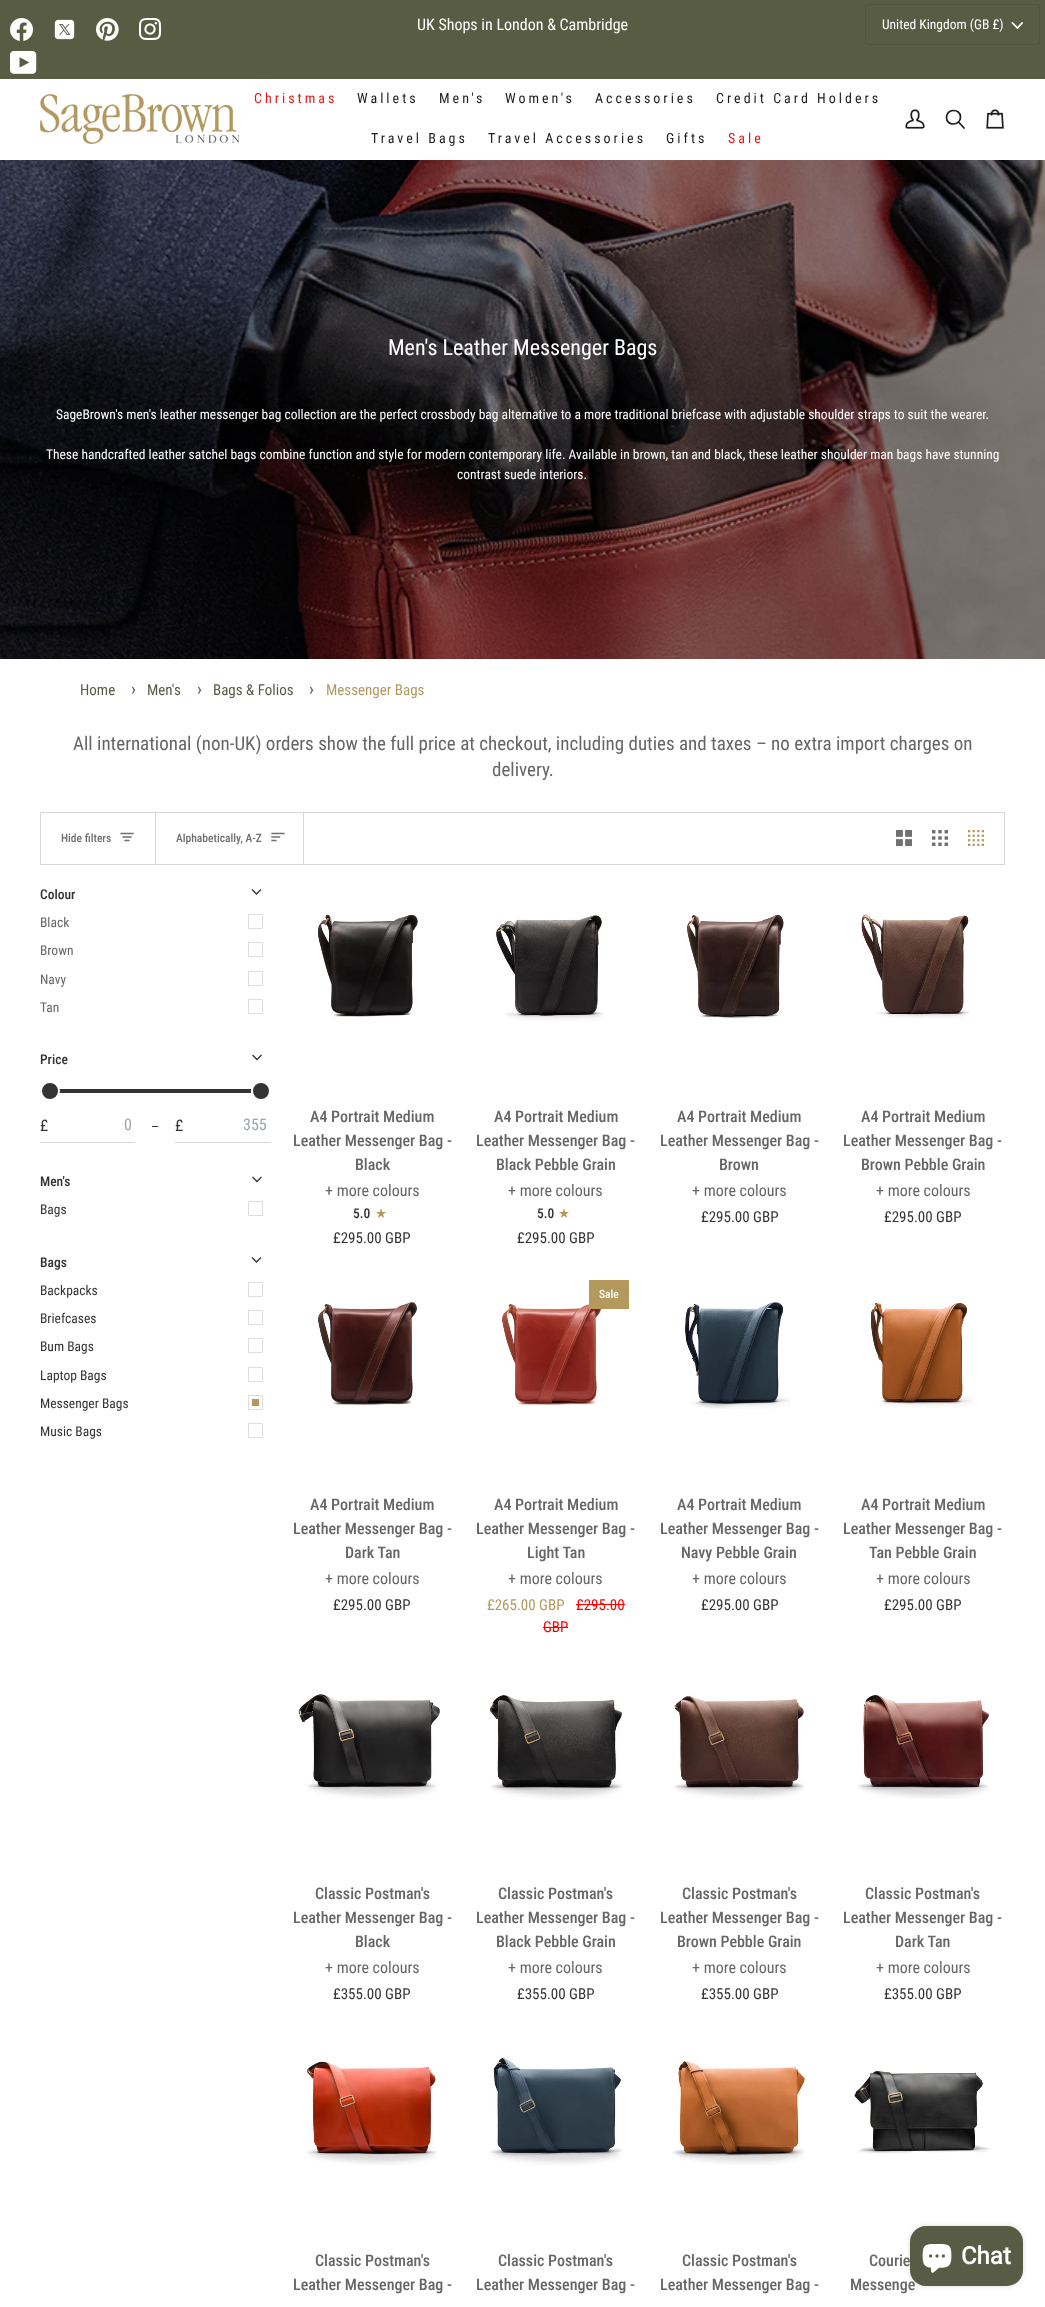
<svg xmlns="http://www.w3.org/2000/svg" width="1045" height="2307">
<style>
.a{font:16px Roboto Condensed;fill:#fff}
.b{font:13.5px Roboto Condensed;fill:#fff}
.c{font:14px Roboto Condensed;letter-spacing:3px;fill:#e91919}
.d{font:14px Roboto Condensed;letter-spacing:3px;fill:#1d1d1d}
.e{font:22px Roboto Condensed;fill:#fff}
.f{font:15px Roboto Condensed;fill:#585c45}
.g{font:18px Roboto Condensed;fill:#585c45}
.h{font:15px Roboto Condensed;fill:#b29963}
.i{font:19px Roboto Condensed;fill:#666}
.j{font:500 11.5px Roboto Condensed;fill:#707070}
.k{font:500 13.5px Roboto Condensed;fill:#333}
.l{font:13.5px Roboto Condensed;fill:#666}
.m{font:16px Roboto Condensed;fill:#333}
.n{font:16px Roboto Condensed;fill:#9ca3af}
.o{font:13.5px Roboto Condensed;fill:#333}
.p{font:500 16px Roboto Condensed;fill:#666}
.q{font:16px Roboto Condensed;fill:#666}
.r{font:13.5px DejaVu Sans;fill:#b5995c}
.s{font:15px Roboto Condensed;fill:#333}
.t{font:500 11.5px Roboto Condensed;fill:#fff}
.u{font:15px Roboto Condensed;fill:#b5995c}
.v{font:15px Roboto Condensed;fill:#f00}
.w{font:bold 24px Roboto;fill:#fff}
</style>
<rect width="100%" height="100%" fill="#fff"/>
<path fill="#585c43" d="M0 0h1045v79H0z"/>
<image href="1.png" x="10" y="18" width="23" height="23"/>
<image href="2.png" x="54" y="19" width="21" height="21"/>
<image href="3.png" x="96" y="18" width="23" height="23"/>
<image href="4.png" x="139" y="18" width="22" height="22"/>
<image href="5.png" x="10" y="51" width="27" height="23"/>
<rect fill="none" stroke="#515440" x="865.5" y="4.5" width="174" height="40" rx="2.5"/>
<path fill="none" stroke="#fff" stroke-width="1.6" stroke-linecap="square" d="M1012.5 23l5 5l4.5-5"/>
<image href="6.png" x="40" y="94" width="200" height="50"/>
<image href="7.png" x="905" y="109" width="20" height="20"/>
<path fill="none" stroke="#1d1d1d" stroke-width="1.7" stroke-linecap="round" stroke-linejoin="round" d="M960.5 117c0 9-14 9.5-14 .5c-.5-9 14-9.5 14-.5zm3.5 11l-5.5-6z"/>
<image href="8.png" x="986" y="109" width="18" height="20"/>
<image href="9.png" x="0" y="160" width="1045" height="499"/>
<path fill="none" stroke="#d6d6d6" d="M40.5 812.5h964v52H40.5z"/>
<path fill="#d6d6d6" d="M155 813h1v51H155z"/>
<path fill="none" stroke="#707070" stroke-width="1.3" stroke-linecap="square" d="M133 833.5h-12m10 3.5h-8m6 3.5h-4"/>
<path fill="#d6d6d6" d="M303 813h1v51H303z"/>
<path fill="none" stroke="#707070" stroke-width="1.3" stroke-linecap="square" d="M284 833.5h-12m7.5 3.5h-7.5m4 3.5h-4"/>
<image href="10.png" x="896" y="830" width="16" height="16"/>
<image href="11.png" x="932" y="830" width="16" height="16"/>
<image href="12.png" x="968" y="830" width="16" height="16"/>
<path fill="none" stroke="#333" stroke-width="1.3" stroke-linecap="square" d="M252.5 890l4 4l4-4"/>
<path fill="none" stroke="#d6d6d6" stroke-width="0.8" d="M248.5 914.5h14v14h-14z"/>
<path fill="none" stroke="#d6d6d6" stroke-width="0.8" d="M248.5 942.5h14v14h-14z"/>
<path fill="none" stroke="#d6d6d6" stroke-width="0.8" d="M248.5 971.5h14v14h-14z"/>
<path fill="none" stroke="#d6d6d6" stroke-width="0.8" d="M248.5 999.5h14v14h-14z"/>
<path fill="none" stroke="#333" stroke-width="1.3" stroke-linecap="square" d="M253 1055.5l4 4l4-4"/>
<path fill="#333" d="M42 1089h209v4h-209c-1 0-2-1-2-2c0-1 1-2 2-2z"/>
<circle fill="#333" stroke="#fff" stroke-width="2" cx="50" cy="1091" r="9"/>
<circle fill="#333" stroke="#fff" stroke-width="2" cx="261" cy="1091" r="9"/>
<path fill="#d6d6d6" d="M40 1142h95v1H40z"/>
<path fill="#333" d="M152 1126h6v1H152z"/>
<path fill="#d6d6d6" d="M175 1142h96v1H175z"/>
<path fill="none" stroke="#333" stroke-width="1.3" stroke-linecap="square" d="M253 1177.5l4 4l4-4"/>
<path fill="none" stroke="#d6d6d6" stroke-width="0.8" d="M248.5 1201.5h14v14h-14z"/>
<path fill="none" stroke="#333" stroke-width="1.3" stroke-linecap="square" d="M252.5 1258l4 4l4-4"/>
<path fill="none" stroke="#d6d6d6" stroke-width="0.8" d="M248.5 1282.5h14v14h-14zm0 28h14v14h-14z"/>
<path fill="none" stroke="#d6d6d6" stroke-width="0.8" d="M248.5 1338.5h14v14h-14zm0 29h14v14h-14z"/>
<path fill="none" stroke="#d6d6d6" stroke-width="0.8" d="M248.5 1395.5h14v14h-14z"/>
<path fill="#b6985e" d="M252 1399h7v7H252z"/>
<path fill="none" stroke="#d6d6d6" stroke-width="0.8" d="M248.5 1423.5h14v14h-14z"/>
<image href="13.png" x="317" y="914" width="102" height="103"/>
<image href="14.png" x="495" y="913" width="109" height="108"/>
<image href="15.png" x="685" y="913" width="99" height="106"/>
<image href="16.png" x="861" y="914" width="109" height="105"/>
<image href="17.png" x="318" y="1301" width="99" height="106"/>
<image href="18.png" x="500" y="1300" width="103" height="106"/>
<path fill="#b5995c" d="M589 1280h40v29H589z"/>
<path fill="#f00" d="M576 1604h49v1H576z"/>
<path fill="#f00" d="M543 1627h25v1H543z"/>
<image href="19.png" x="684" y="1301" width="107" height="108"/>
<image href="20.png" x="869" y="1300" width="106" height="108"/>
<image href="21.png" x="298" y="1693" width="143" height="106"/>
<image href="22.png" x="489" y="1693" width="134" height="107"/>
<image href="23.png" x="673" y="1693" width="132" height="107"/>
<image href="24.png" x="857" y="1695" width="133" height="104"/>
<image href="25.png" x="306" y="2060" width="131" height="106"/>
<image href="26.png" x="489" y="2056" width="134" height="110"/>
<image href="27.png" x="672" y="2060" width="134" height="105"/>
<image href="28.png" x="854" y="2071" width="138" height="83"/>
<rect fill="#00000026" filter="blur(2.5px)" x="910" y="2226" width="113" height="60" rx="16"/>
<text class="a" x="417" y="30">UK Shops in London &amp; Cambridge</text>
<text class="b" x="882" y="29">United Kingdom (GB £)</text>
<text class="c" x="254" y="103">Christmas</text>
<text class="d" x="357" y="103">Wallets</text>
<text class="d" x="439" y="103">Men's</text>
<text class="d" x="505" y="103">Women's</text>
<text class="d" x="595" y="103">Accessories</text>
<text class="d" x="716" y="103">Credit Card Holders</text>
<text class="d" x="371" y="143">Travel Bags</text>
<text class="d" x="488" y="143">Travel Accessories</text>
<text class="d" x="666" y="143">Gifts</text>
<text class="c" x="728" y="143">Sale</text>
<text class="e" x="388" y="355">Men's Leather Messenger Bags</text>
<text class="b" x="56" y="419">SageBrown's men's leather messenger bag collection are the perfect crossbody bag alternative to a more traditional briefcase with adjustable shoulder straps to suit the wearer.</text>
<text class="b" x="46" y="459">These handcrafted leather satchel bags combine function and style for modern contemporary life. Available in brown, tan and black, these leather shoulder man bags have stunning</text>
<text class="b" x="457" y="479">contrast suede interiors.</text>
<text class="f" x="80" y="695">Home</text>
<text class="g" x="131" y="695">›</text>
<text class="f" x="147" y="695">Men's</text>
<text class="g" x="197" y="695">›</text>
<text class="f" x="213" y="695">Bags &amp; Folios</text>
<text class="g" x="309" y="695">›</text>
<text class="h" x="326" y="695">Messenger Bags</text>
<text class="i" x="73" y="750">All international (non-UK) orders show the full price at checkout, including duties and taxes – no extra import charges on</text>
<text class="i" x="492" y="776">delivery.</text>
<text class="j" x="61" y="842">Hide filters</text>
<text class="j" x="176" y="842">Alphabetically, A-Z</text>
<text class="k" x="40" y="899">Colour</text>
<text class="l" x="40" y="927">Black</text>
<text class="l" x="40" y="955">Brown</text>
<text class="l" x="40" y="984">Navy</text>
<text class="l" x="40" y="1012">Tan</text>
<text class="k" x="40" y="1064">Price</text>
<text class="m" x="40" y="1131">£</text>
<text class="n" x="124" y="1130">0</text>
<text class="m" x="175" y="1131">£</text>
<text class="n" x="243" y="1130">355</text>
<text class="k" x="40" y="1186">Men's</text>
<text class="o" x="40" y="1214">Bags</text>
<text class="k" x="40" y="1267">Bags</text>
<text class="o" x="40" y="1295">Backpacks</text>
<text class="o" x="40" y="1323">Briefcases</text>
<text class="o" x="40" y="1351">Bum Bags</text>
<text class="o" x="40" y="1380">Laptop Bags</text>
<text class="o" x="40" y="1408">Messenger Bags</text>
<text class="o" x="40" y="1436">Music Bags</text>
<text class="p" x="310" y="1122">A4 Portrait Medium</text>
<text class="p" x="293" y="1146">Leather Messenger Bag -</text>
<text class="p" x="355" y="1170">Black</text>
<text class="q" x="325" y="1196">+ more colours</text>
<text class="k" x="353" y="1218">5.0</text>
<text class="r" x="375" y="1218">★</text>
<text class="s" x="333" y="1243">£295.00 GBP</text>
<text class="p" x="494" y="1122">A4 Portrait Medium</text>
<text class="p" x="476" y="1146">Leather Messenger Bag -</text>
<text class="p" x="496" y="1170">Black Pebble Grain</text>
<text class="q" x="508" y="1196">+ more colours</text>
<text class="k" x="537" y="1218">5.0</text>
<text class="r" x="558" y="1218">★</text>
<text class="s" x="517" y="1243">£295.00 GBP</text>
<text class="p" x="677" y="1122">A4 Portrait Medium</text>
<text class="p" x="660" y="1146">Leather Messenger Bag -</text>
<text class="p" x="719" y="1170">Brown</text>
<text class="q" x="692" y="1196">+ more colours</text>
<text class="s" x="701" y="1222">£295.00 GBP</text>
<text class="p" x="861" y="1122">A4 Portrait Medium</text>
<text class="p" x="843" y="1146">Leather Messenger Bag -</text>
<text class="p" x="861" y="1170">Brown Pebble Grain</text>
<text class="q" x="876" y="1196">+ more colours</text>
<text class="s" x="884" y="1222">£295.00 GBP</text>
<text class="p" x="310" y="1510">A4 Portrait Medium</text>
<text class="p" x="293" y="1534">Leather Messenger Bag -</text>
<text class="p" x="345" y="1558">Dark Tan</text>
<text class="q" x="325" y="1584">+ more colours</text>
<text class="s" x="333" y="1610">£295.00 GBP</text>
<text class="t" x="599" y="1298">Sale</text>
<text class="p" x="494" y="1510">A4 Portrait Medium</text>
<text class="p" x="476" y="1534">Leather Messenger Bag -</text>
<text class="p" x="527" y="1558">Light Tan</text>
<text class="q" x="508" y="1584">+ more colours</text>
<text class="u" x="487" y="1610">£265.00 GBP</text>
<text class="v" x="576" y="1610">£295.00</text>
<text class="v" x="543" y="1632">GBP</text>
<text class="p" x="677" y="1510">A4 Portrait Medium</text>
<text class="p" x="660" y="1534">Leather Messenger Bag -</text>
<text class="p" x="681" y="1558">Navy Pebble Grain</text>
<text class="q" x="692" y="1584">+ more colours</text>
<text class="s" x="701" y="1610">£295.00 GBP</text>
<text class="p" x="861" y="1510">A4 Portrait Medium</text>
<text class="p" x="843" y="1534">Leather Messenger Bag -</text>
<text class="p" x="869" y="1558">Tan Pebble Grain</text>
<text class="q" x="876" y="1584">+ more colours</text>
<text class="s" x="884" y="1610">£295.00 GBP</text>
<text class="p" x="315" y="1899">Classic Postman's</text>
<text class="p" x="293" y="1923">Leather Messenger Bag -</text>
<text class="p" x="355" y="1947">Black</text>
<text class="q" x="325" y="1973">+ more colours</text>
<text class="s" x="333" y="1999">£355.00 GBP</text>
<text class="p" x="498" y="1899">Classic Postman's</text>
<text class="p" x="476" y="1923">Leather Messenger Bag -</text>
<text class="p" x="496" y="1947">Black Pebble Grain</text>
<text class="q" x="508" y="1973">+ more colours</text>
<text class="s" x="517" y="1999">£355.00 GBP</text>
<text class="p" x="682" y="1899">Classic Postman's</text>
<text class="p" x="660" y="1923">Leather Messenger Bag -</text>
<text class="p" x="677" y="1947">Brown Pebble Grain</text>
<text class="q" x="692" y="1973">+ more colours</text>
<text class="s" x="701" y="1999">£355.00 GBP</text>
<text class="p" x="865" y="1899">Classic Postman's</text>
<text class="p" x="843" y="1923">Leather Messenger Bag -</text>
<text class="p" x="895" y="1947">Dark Tan</text>
<text class="q" x="876" y="1973">+ more colours</text>
<text class="s" x="884" y="1999">£355.00 GBP</text>
<text class="p" x="315" y="2266">Classic Postman's</text>
<text class="p" x="293" y="2290">Leather Messenger Bag -</text>
<text class="p" x="498" y="2266">Classic Postman's</text>
<text class="p" x="476" y="2290">Leather Messenger Bag -</text>
<text class="p" x="682" y="2266">Classic Postman's</text>
<text class="p" x="660" y="2290">Leather Messenger Bag -</text>
<text class="p" x="869" y="2266">Courie</text>
<text class="p" x="850" y="2290">Messenge</text>
<rect fill="#585c45" x="910" y="2226" width="113" height="60" rx="16"/>
<image href="29.png" x="922" y="2244" width="30" height="29"/>
<text class="w" x="961" y="2264">Chat</text>
</svg>
